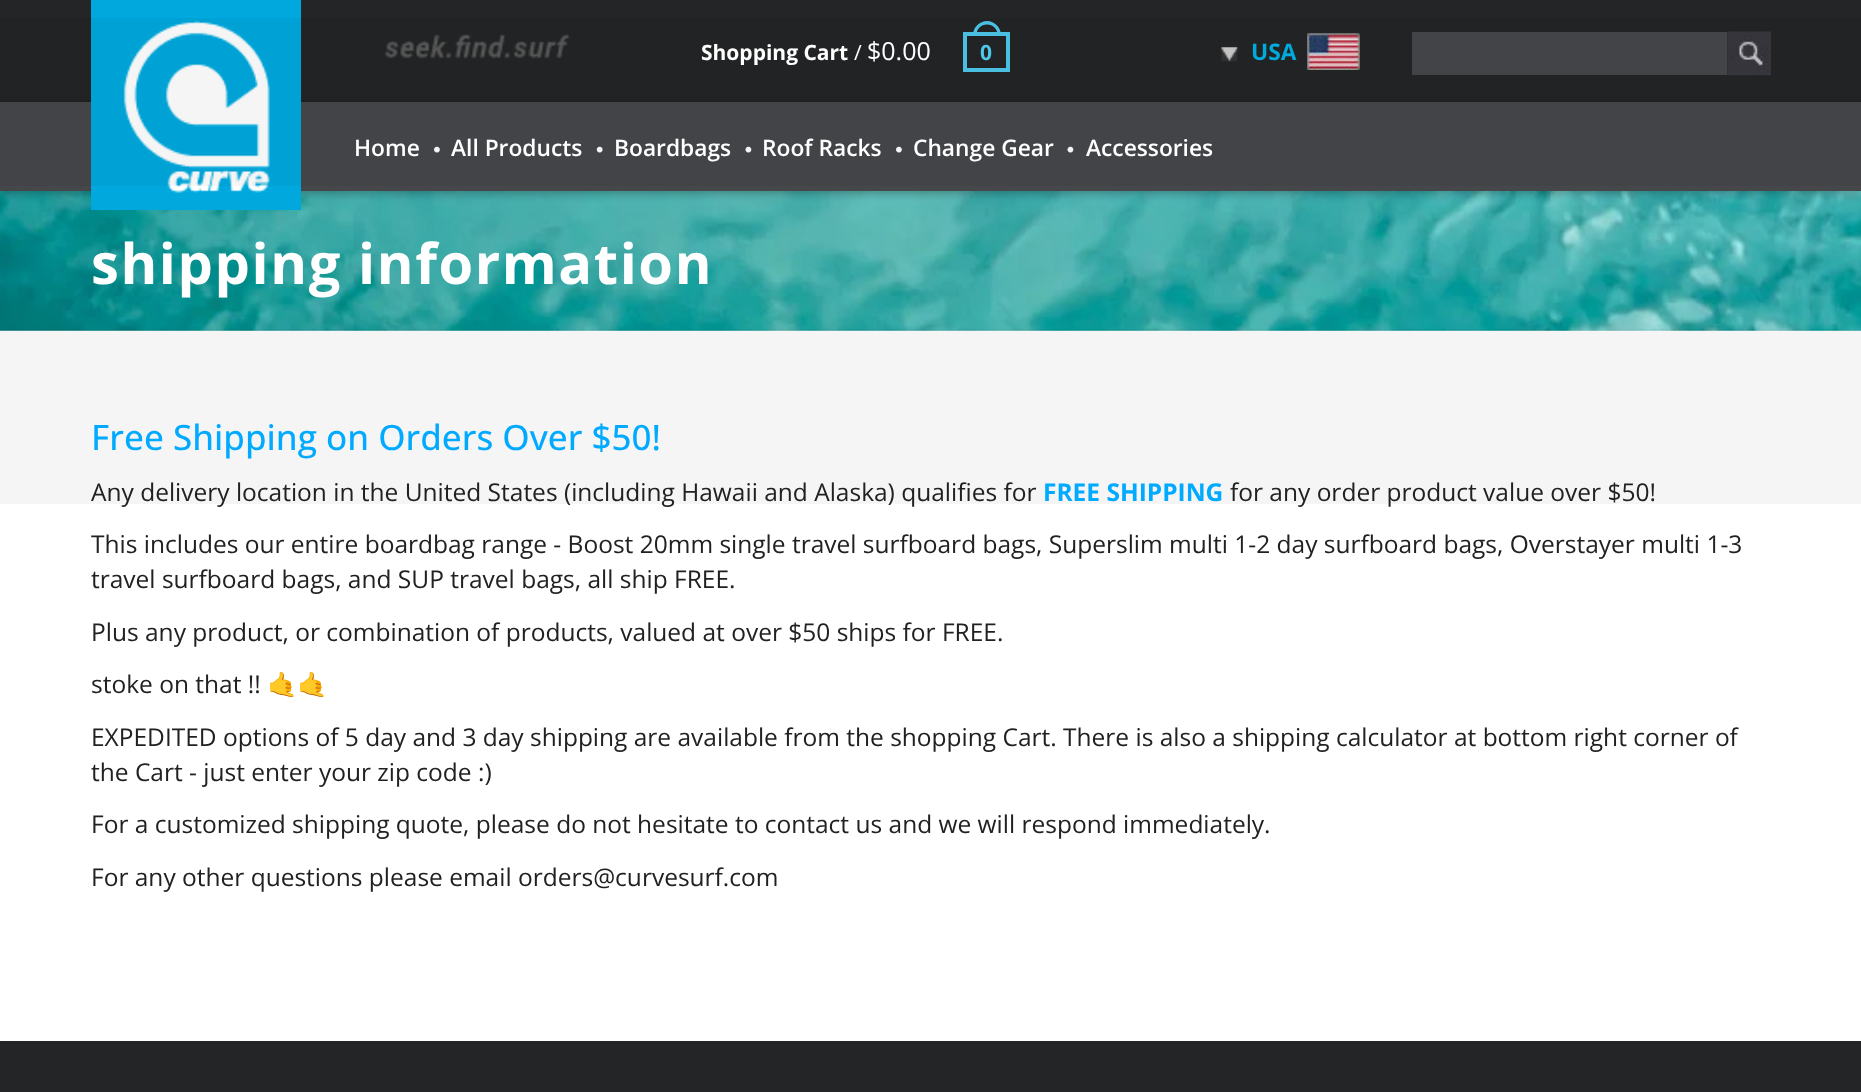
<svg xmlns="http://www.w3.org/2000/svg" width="1861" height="1092">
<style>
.a{font:bold 21px Open Sans;fill:#fff}
.b{font:21px Open Sans;fill:#fff}
.c{font:25px Open Sans;fill:#fff}
.d{font:bold 21px Open Sans;fill:#4fc7e9}
.e{font:bold 22.75px Open Sans;fill:#00aada}
.f{font:600 22.75px Open Sans;fill:#fff}
.g{font:bold 56px Open Sans;letter-spacing:1.6px;fill:#fff}
.h{font:500 35px Open Sans;fill:#0af}
.i{font:24.5px Open Sans;fill:#212121}
.j{font:bold 24.5px Open Sans;fill:#0af}
.k{font:24.5px Noto Color Emoji;fill:#212121}
</style>
<rect width="100%" height="100%" fill="#fff"/>
<path fill="#242527" d="M0 0h1861v102H0z"/>
<image href="9.png" x="0" y="191" width="1861" height="140"/>
<path fill="#00000042" filter="blur(4.5px)" d="M0 105h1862v89H0z"/>
<path fill="#46474a" d="M0 102h1861v89H0z"/>
<image href="1.png" x="91" y="0" width="210" height="210"/>
<image href="2.png" x="384" y="34" width="186" height="25"/>
<path fill="#4fc7e9" fill-rule="evenodd" d="M987 21c7.5 0 14 6.5 14 14h-28c0-7.5 6.5-14 14-14zm0 3.5c6 0 10.5 4.5 10.5 10.5h-21c0-6 4.5-10.5 10.5-10.5z"/>
<path fill="none" stroke="#4fc7e9" stroke-width="4" d="M965 34h43v36H965z"/>
<image href="3.png" x="1221" y="47" width="17" height="15"/>
<image href="4.png" x="1307" y="33" width="53" height="37"/>
<path fill="#46474a" d="M1412 32h315v43H1412z"/>
<image href="5.png" x="1727" y="31" width="44" height="45"/>
<image href="6.png" x="434" y="146" width="6" height="7"/>
<image href="7.png" x="596" y="146" width="7" height="7"/>
<image href="8.png" x="745" y="146" width="7" height="7"/>
<image href="6.png" x="896" y="146" width="6" height="7"/>
<image href="8.png" x="1067" y="146" width="7" height="7"/>
<path fill="#0000000a" fill-rule="evenodd" d="M-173 18h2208v486h-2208zm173 168h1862c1 0 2 0 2 1v140c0 1-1 2-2 2h-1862c-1 0-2-1-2-2v-140c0-1 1-1 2-1z"/>
<path fill="#242527" d="M0 1041h1861v51H0z"/>
<text class="a" x="701" y="60">Shopping Cart</text>
<text class="b" x="854" y="60">/</text>
<text class="c" x="867" y="60">$0.00</text>
<text class="d" x="980" y="60">0</text>
<text class="e" x="1251" y="60">USA</text>
<text class="f" x="354" y="156">Home</text>
<text class="f" x="451" y="156">All Products</text>
<text class="f" x="614" y="156">Boardbags</text>
<text class="f" x="762" y="156">Roof Racks</text>
<text class="f" x="913" y="156">Change Gear</text>
<text class="f" x="1086" y="156">Accessories</text>
<text class="g" x="91" y="284">shipping information</text>
<text class="h" x="91" y="450">Free Shipping on Orders Over $50!</text>
<text class="i" x="91" y="501">Any delivery location in the United States (including Hawaii and Alaska) qualifies for</text>
<text class="j" x="1043" y="501">FREE SHIPPING</text>
<text class="i" x="1230" y="501">for any order product value over $50!</text>
<text class="i" x="91" y="553">This includes our entire boardbag range - Boost 20mm single travel surfboard bags, Superslim multi 1-2 day surfboard bags, Overstayer multi 1-3</text>
<text class="i" x="91" y="588">travel surfboard bags, and SUP travel bags, all ship FREE.</text>
<text class="i" x="91" y="641">Plus any product, or combination of products, valued at over $50 ships for FREE.</text>
<text class="i" x="91" y="693">stoke on that !!</text>
<text class="k" x="267" y="693">🤙🤙</text>
<text class="i" x="91" y="746">EXPEDITED options of 5 day and 3 day shipping are available from the shopping Cart. There is also a shipping calculator at bottom right corner of</text>
<text class="i" x="91" y="781">the Cart - just enter your zip code :)</text>
<text class="i" x="91" y="833">For a customized shipping quote, please do not hesitate to contact us and we will respond immediately.</text>
<text class="i" x="91" y="886">For any other questions please email orders@curvesurf.com</text>
</svg>
